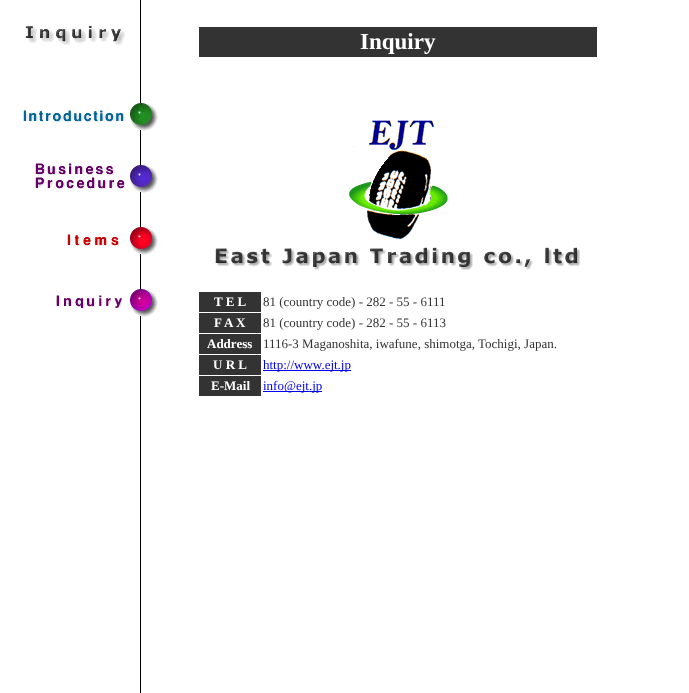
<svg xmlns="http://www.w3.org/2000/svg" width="689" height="693">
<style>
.a{font:bold 23px Liberation Serif;fill:#fff}
.b{font:bold 13px Liberation Serif;fill:#fff}
.c{font:13px Liberation Serif;fill:#333}
.d{font:13px Liberation Serif;fill:#00e}
</style>
<rect width="100%" height="100%" fill="#fff"/>
<path fill="#000" d="M140 0h1v693H140z"/>
<image href="1.png" x="25" y="25" width="100" height="20"/>
<image href="2.png" x="23" y="103" width="135" height="28"/>
<image href="3.png" x="35" y="163" width="123" height="30"/>
<image href="4.png" x="67" y="227" width="91" height="28"/>
<image href="5.png" x="56" y="289" width="102" height="28"/>
<path fill="#333" d="M199 27h398v30H199z"/>
<image href="6.png" x="341" y="120" width="107" height="120"/>
<image href="7.png" x="215" y="247" width="365" height="23"/>
<path fill="#333" d="M199 292h62v20H199z"/>
<path fill="#333" d="M199 313h62v20H199z"/>
<path fill="#333" d="M199 334h62v20H199z"/>
<path fill="#333" d="M199 355h62v20H199z"/>
<path fill="#00e" d="M263 370h88v1H263z"/>
<path fill="#333" d="M199 376h62v20H199z"/>
<path fill="#00e" d="M263 391h59v1H263z"/>
<text class="a" x="360" y="49">Inquiry</text>
<text class="b" x="214" y="306">T E L</text>
<text class="c" x="263" y="306">81 (country code) - 282 - 55 - 6111</text>
<text class="b" x="214" y="327">F A X</text>
<text class="c" x="263" y="327">81 (country code) - 282 - 55 - 6113</text>
<text class="b" x="207" y="348">Address</text>
<text class="c" x="263" y="348">1116-3 Maganoshita, iwafune, shimotga, Tochigi, Japan.</text>
<text class="b" x="213" y="369">U R L</text>
<text class="d" x="263" y="369">http://www.ejt.jp</text>
<text class="b" x="211" y="390">E-Mail</text>
<text class="d" x="263" y="390">info@ejt.jp</text>
</svg>
